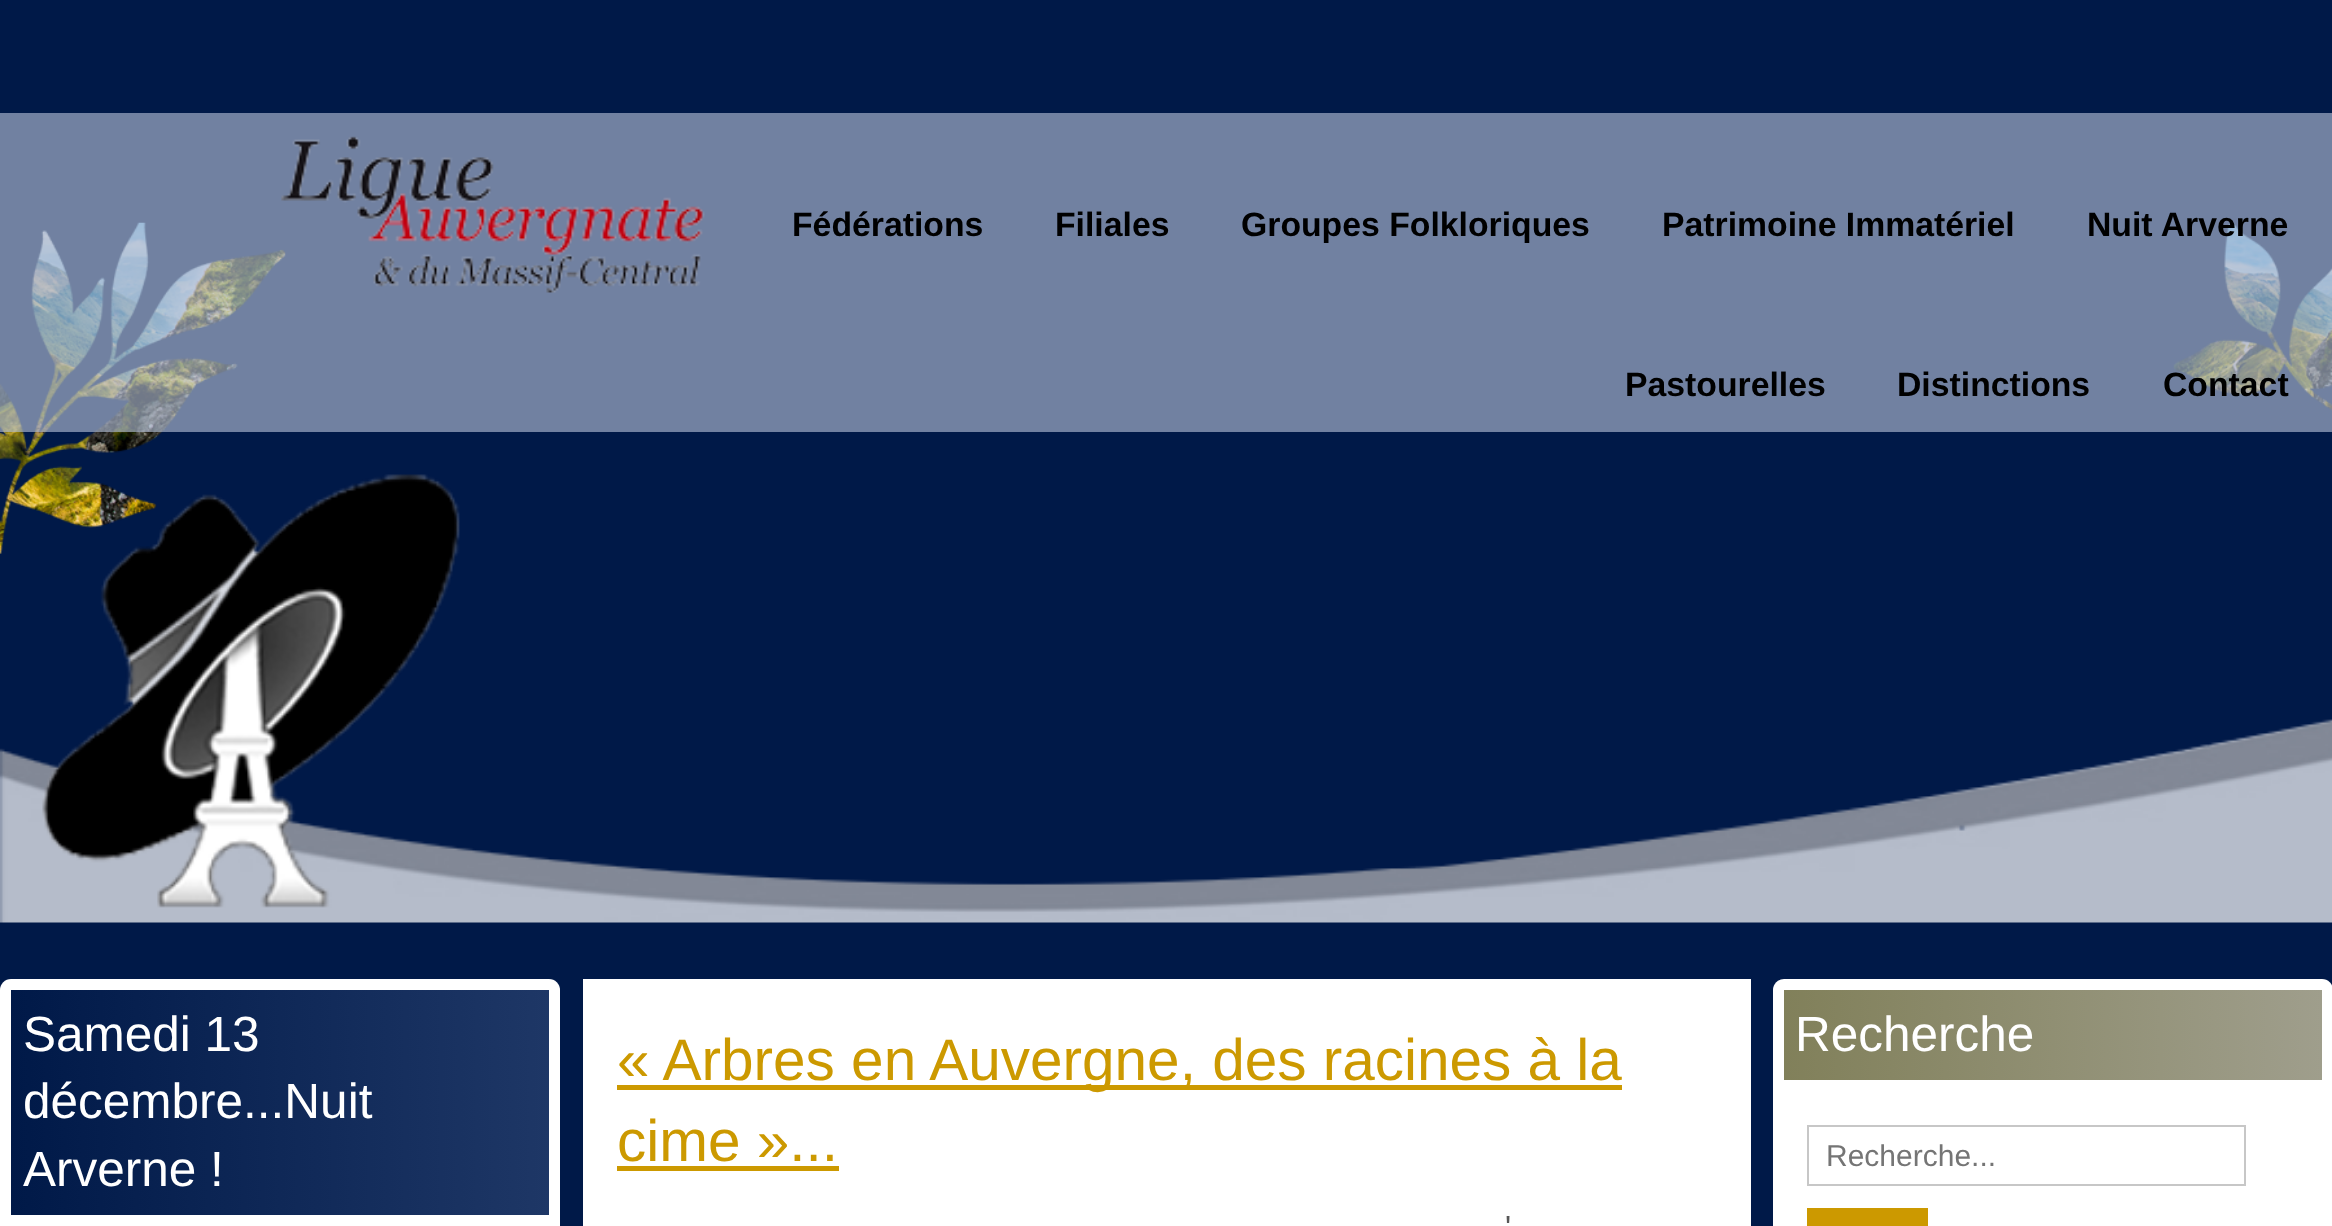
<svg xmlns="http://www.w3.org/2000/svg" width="2332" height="1226">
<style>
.a{font:bold 33.75px Liberation Sans;fill:#000}
.b{font:49.5px Liberation Sans;fill:#fff}
.c{font:58.5px Liberation Sans;fill:#c90}
.d{font:32px Liberation Sans;fill:#575757}
.e{font:30px Liberation Sans;fill:#757575}
</style>
<defs>
<linearGradient id="g1" gradientUnits="userSpaceOnUse" x1="11" y1="1103" x2="549" y2="1103"><stop offset="0" stop-color="#001948"/><stop offset="1" stop-color="#1e3766"/></linearGradient>
<linearGradient id="g2" gradientUnits="userSpaceOnUse" x1="1784" y1="1035" x2="2322" y2="1035"><stop offset="0" stop-color="#81805a"/><stop offset="1" stop-color="#9f9e8c"/></linearGradient>
</defs>
<rect width="100%" height="100%" fill="#001948"/>
<image href="1.png" x="0" y="222" width="2332" height="332"/>
<path fill="#aebad1a6" d="M0 113h2332v319H0z"/>
<image href="2.png" x="281" y="136" width="424" height="157"/>
<image href="3.png" x="0" y="474" width="2332" height="449"/>
<rect fill="#fff" y="979" width="560" height="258" rx="11"/>
<path fill="url(#g1)" d="M11 990h538v225H11z"/>
<path fill="#fff" d="M583 979h1168v247H583z"/>
<path fill="#c90" d="M617 1085h1005v5H617z"/>
<path fill="#c90" d="M617 1166h222v5H617z"/>
<rect fill="#fff" x="1773" y="979" width="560" height="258" rx="11"/>
<path fill="url(#g2)" d="M1784 990h538v90H1784z"/>
<path fill="none" stroke="#c7c7c7" stroke-width="2" d="M1808 1126h437v59H1808z"/>
<path fill="#c90" d="M1807 1208h121v18H1807z"/>
<text class="a" x="792" y="236">Fédérations</text>
<text class="a" x="1055" y="236">Filiales</text>
<text class="a" x="1241" y="236">Groupes Folkloriques</text>
<text class="a" x="1662" y="236">Patrimoine Immatériel</text>
<text class="a" x="2087" y="236">Nuit Arverne</text>
<text class="a" x="1625" y="396">Pastourelles</text>
<text class="a" x="1897" y="396">Distinctions</text>
<text class="a" x="2163" y="396">Contact</text>
<text class="b" x="23" y="1051">Samedi 13</text>
<text class="b" x="23" y="1118">décembre...Nuit</text>
<text class="b" x="23" y="1186">Arverne !</text>
<text class="c" x="617" y="1080">« Arbres en Auvergne, des racines à la</text>
<text class="c" x="617" y="1161">cime »...</text>
<text class="d" x="1505" y="1238" word-spacing="9">'</text>
<text class="b" x="1795" y="1051">Recherche</text>
<text class="e" x="1826" y="1166">Recherche...</text>
</svg>
